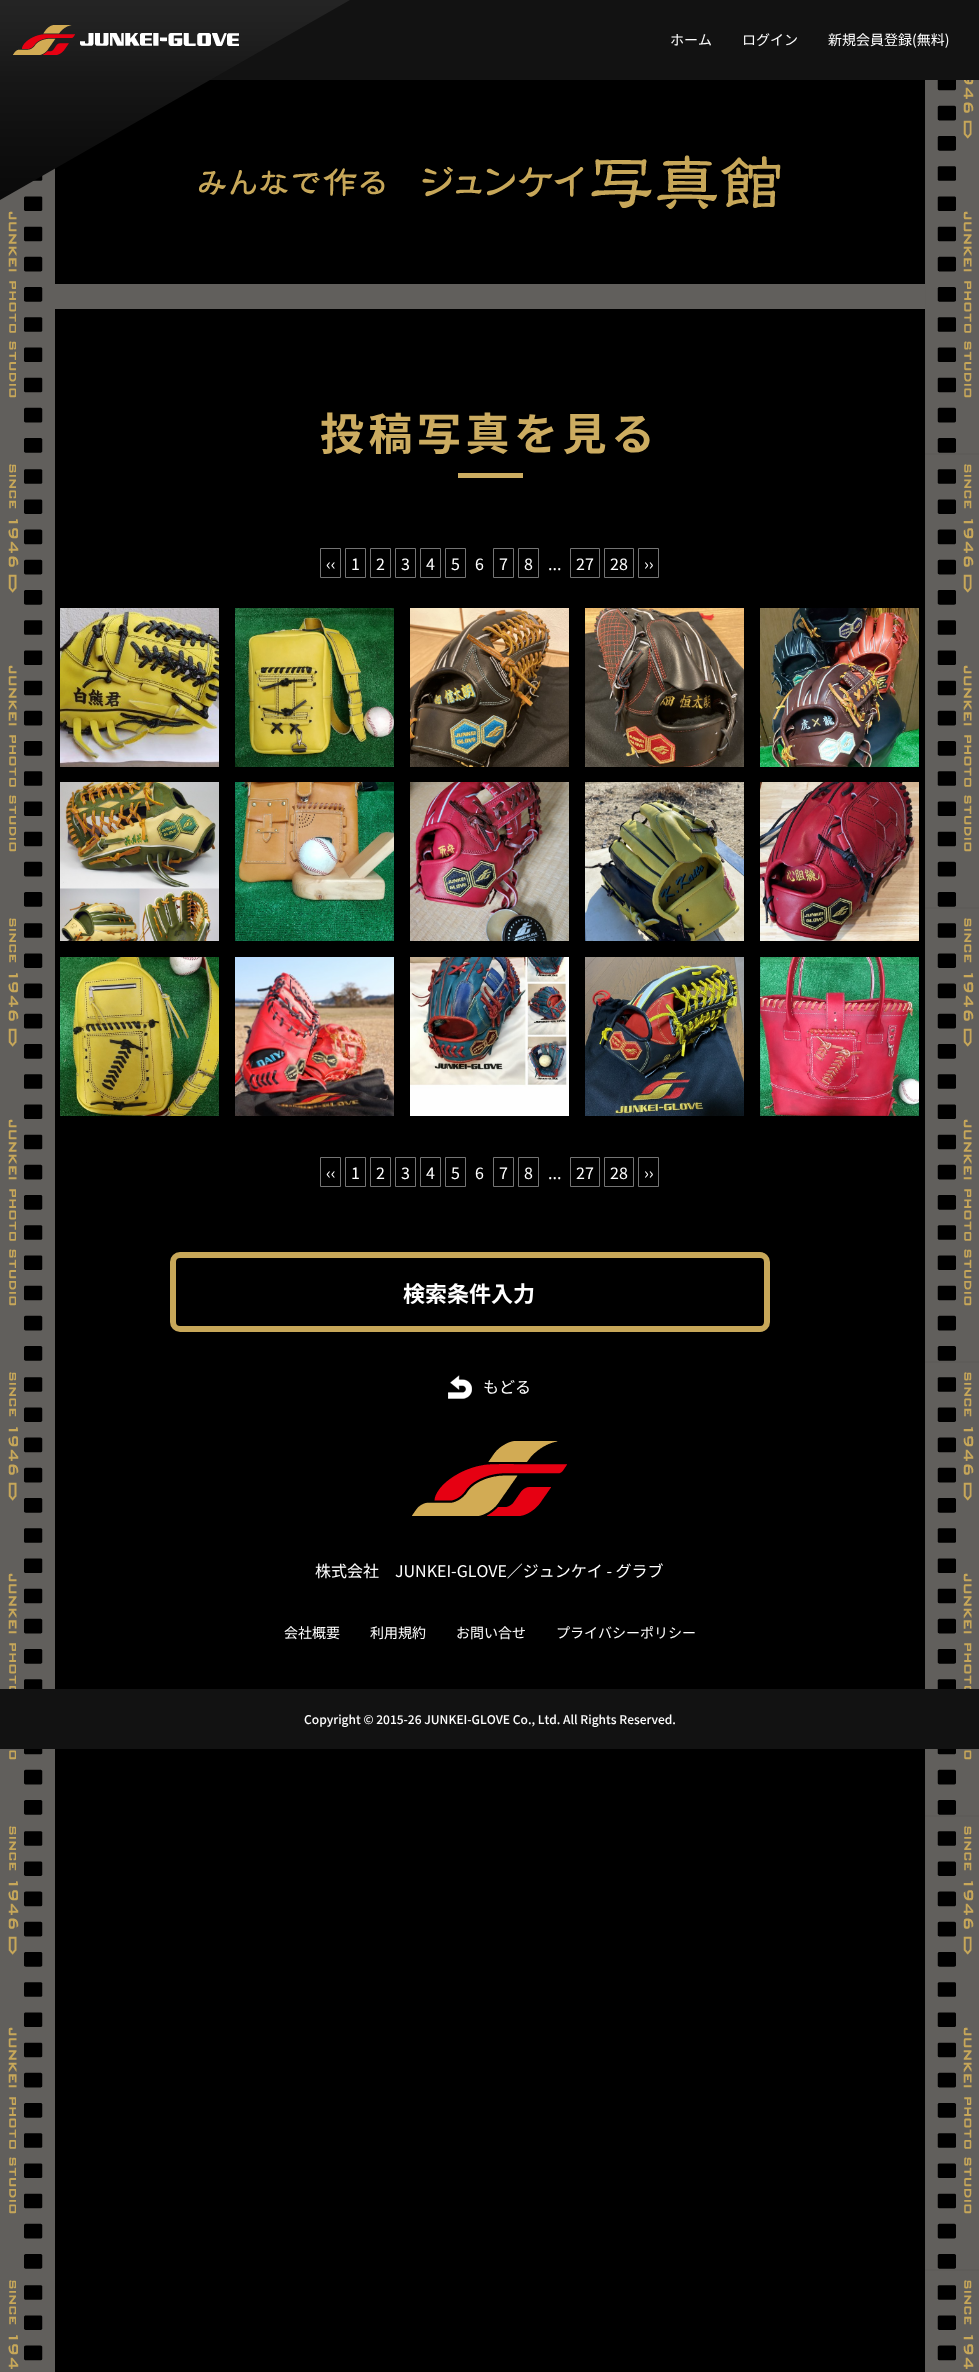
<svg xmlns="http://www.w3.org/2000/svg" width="979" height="2372">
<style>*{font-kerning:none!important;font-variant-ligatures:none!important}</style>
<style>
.a{font:14px Noto Sans JP;fill:#fff}
.b{font:bold 44px Noto Sans JP;letter-spacing:4.5px;fill:#ccac61}
.c{font:16px Noto Sans JP;fill:#fff}
.d{font:bold 22px Noto Sans JP;fill:#fff}
.e{font:500 12px Noto Sans JP;fill:#fff}
</style>
<rect width="100%" height="100%" fill="#000"/>
<image href="1.png" x="0" y="80" width="979" height="2292"/>
<path fill="#121212" d="M210 0h769v80H210z"/>
<image href="3.png" x="199" y="155" width="582" height="54"/>
<image href="2.png" x="0" y="0" width="350" height="200"/>
<path fill="#615f5c" d="M55 284h870v25H55z"/>
<path fill="#ccac61" d="M458 473h65v5H458z"/>
<path fill="none" stroke="#747474" d="M320.5 548.5h20v29H320.5z"/>
<path fill="none" stroke="#747474" d="M345.5 548.5h20v29H345.5z"/>
<path fill="none" stroke="#747474" d="M370.5 548.5h20v29H370.5z"/>
<path fill="none" stroke="#747474" d="M395.5 548.5h20v29H395.5z"/>
<path fill="none" stroke="#747474" d="M420.5 548.5h20v29H420.5z"/>
<path fill="none" stroke="#747474" d="M445.5 548.5h20v29H445.5z"/>
<path fill="none" stroke="#747474" d="M493.5 548.5h20v29H493.5z"/>
<path fill="none" stroke="#747474" d="M518.5 548.5h20v29H518.5z"/>
<path fill="none" stroke="#747474" d="M570.5 548.5h29v29H570.5z"/>
<path fill="none" stroke="#747474" d="M604.5 548.5h29v29H604.5z"/>
<path fill="none" stroke="#747474" d="M638.5 548.5h20v29H638.5z"/>
<image href="4.png" x="60" y="608" width="159" height="159"/>
<image href="5.png" x="235" y="608" width="159" height="159"/>
<image href="6.png" x="410" y="608" width="159" height="159"/>
<image href="7.png" x="585" y="608" width="159" height="159"/>
<image href="8.png" x="760" y="608" width="159" height="159"/>
<image href="9.png" x="60" y="782" width="159" height="159"/>
<image href="10.png" x="235" y="782" width="159" height="159"/>
<image href="11.png" x="410" y="782" width="159" height="159"/>
<image href="12.png" x="585" y="782" width="159" height="159"/>
<image href="13.png" x="760" y="782" width="159" height="159"/>
<image href="14.png" x="60" y="957" width="159" height="159"/>
<image href="15.png" x="235" y="957" width="159" height="159"/>
<image href="16.png" x="410" y="957" width="159" height="159"/>
<image href="17.png" x="585" y="957" width="159" height="159"/>
<image href="18.png" x="760" y="957" width="159" height="159"/>
<path fill="none" stroke="#747474" d="M320.5 1157.5h20v29H320.5z"/>
<path fill="none" stroke="#747474" d="M345.5 1157.5h20v29H345.5z"/>
<path fill="none" stroke="#747474" d="M370.5 1157.5h20v29H370.5z"/>
<path fill="none" stroke="#747474" d="M395.5 1157.5h20v29H395.5z"/>
<path fill="none" stroke="#747474" d="M420.5 1157.5h20v29H420.5z"/>
<path fill="none" stroke="#747474" d="M445.5 1157.5h20v29H445.5z"/>
<path fill="none" stroke="#747474" d="M493.5 1157.5h20v29H493.5z"/>
<path fill="none" stroke="#747474" d="M518.5 1157.5h20v29H518.5z"/>
<path fill="none" stroke="#747474" d="M570.5 1157.5h29v29H570.5z"/>
<path fill="none" stroke="#747474" d="M604.5 1157.5h29v29H604.5z"/>
<path fill="none" stroke="#747474" d="M638.5 1157.5h20v29H638.5z"/>
<rect fill="none" stroke="#c7a759" stroke-width="6" x="173" y="1255" width="594" height="74" rx="7"/>
<image href="19.png" x="448" y="1375" width="24" height="24"/>
<image href="20.png" x="412" y="1441" width="155" height="75"/>
<path fill="#121212" d="M0 1689h979v60H0z"/>
<text class="a" x="670" y="45">ホーム</text>
<text class="a" x="742" y="45">ログイン</text>
<text class="a" x="828" y="45">新規会員登録(無料)</text>
<text class="b" x="320" y="450">投稿写真を見る</text>
<text class="c" x="326" y="570">‹‹</text>
<text class="c" x="351" y="570">1</text>
<text class="c" x="376" y="570">2</text>
<text class="c" x="401" y="570">3</text>
<text class="c" x="426" y="570">4</text>
<text class="c" x="451" y="570">5</text>
<text class="c" x="475" y="570">6</text>
<text class="c" x="499" y="570">7</text>
<text class="c" x="524" y="570">8</text>
<text class="c" x="576" y="570">27</text>
<text class="c" x="610" y="570">28</text>
<text class="c" x="644" y="570">››</text>
<text class="c" x="548" y="570">...</text>
<text class="c" x="326" y="1179">‹‹</text>
<text class="c" x="351" y="1179">1</text>
<text class="c" x="376" y="1179">2</text>
<text class="c" x="401" y="1179">3</text>
<text class="c" x="426" y="1179">4</text>
<text class="c" x="451" y="1179">5</text>
<text class="c" x="475" y="1179">6</text>
<text class="c" x="499" y="1179">7</text>
<text class="c" x="524" y="1179">8</text>
<text class="c" x="576" y="1179">27</text>
<text class="c" x="610" y="1179">28</text>
<text class="c" x="644" y="1179">››</text>
<text class="c" x="548" y="1179">...</text>
<text class="d" x="403" y="1302">検索条件入力</text>
<text class="c" x="483" y="1393">もどる</text>
<text class="c" x="315" y="1577">株式会社　JUNKEI-GLOVE／ジュンケイ - グラブ</text>
<text class="a" x="284" y="1638">会社概要</text>
<text class="a" x="370" y="1638">利用規約</text>
<text class="a" x="456" y="1638">お問い合せ</text>
<text class="a" x="556" y="1638">プライバシーポリシー</text>
<text class="e" x="304" y="1724">Copyright © 2015-26 JUNKEI-GLOVE Co., Ltd. All Rights Reserved.</text>
</svg>
